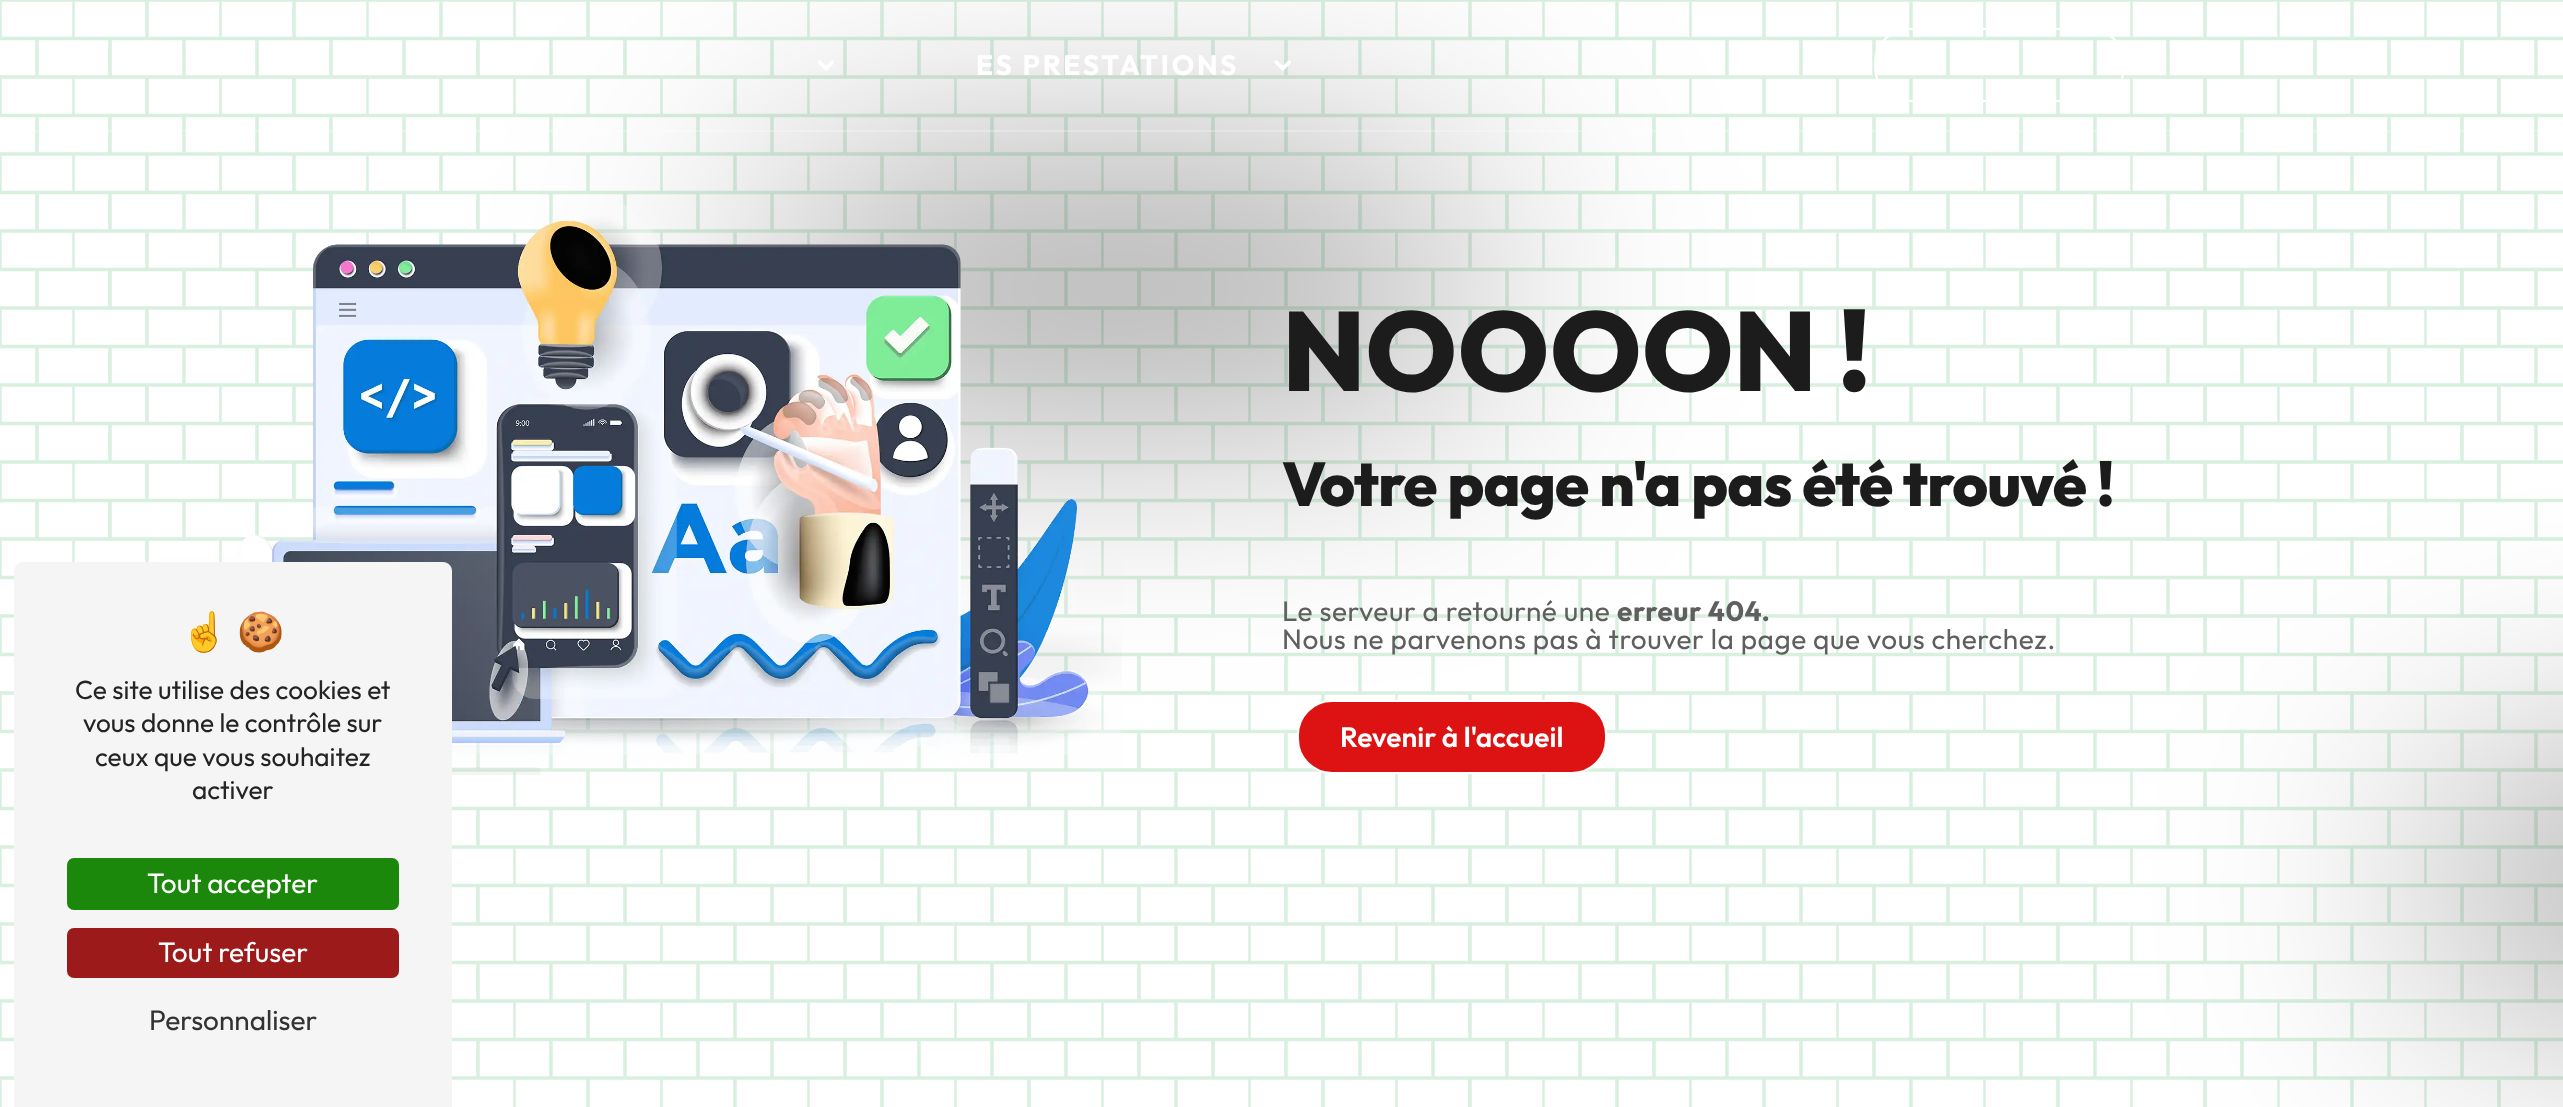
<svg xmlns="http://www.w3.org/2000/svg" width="2563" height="1107">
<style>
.a{font:bold 28px Outfit;letter-spacing:2.75px;fill:#fff}
.b{font:800 112px Outfit;fill:#1c1c1c}
.c{font:800 61.6px Outfit;letter-spacing:-0.85px;fill:#1c1c1c}
.d{font:28px Outfit;letter-spacing:0.55px;fill:#5e5f5e}
.e{font:bold 28px Outfit;letter-spacing:0.55px;fill:#5e5f5e}
.f{font:600 28px Outfit;fill:#fff}
.g{font:38px Noto Color Emoji;fill:#242424}
.h{font:26.25px Outfit;fill:#242424}
.i{font:28px Outfit;fill:#fff}
.j{font:28px Outfit;fill:#333}
</style>
<rect width="100%" height="100%" fill="#fff"/>
<image href="1.png" x="0" y="0" width="2563" height="1107"/>
<rect fill="#00000080" filter="blur(140px)" x="770" y="200" width="700" height="175" rx="87.5"/>
<path fill="#ffffff40" d="M35 130h2503v2H35z"/>
<image href="2.png" x="818" y="60" width="16" height="11"/>
<image href="3.png" x="1274" y="60" width="17" height="11"/>
<rect fill="none" stroke="#fff" stroke-width="2" x="1875" y="29" width="249" height="72" rx="34"/>
<rect fill="#00000080" filter="blur(140px)" x="2436" y="798" width="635" height="175" rx="87.5"/>
<image href="4.png" x="161" y="204" width="961" height="572"/>
<rect fill="#dd1212" stroke="#fff" stroke-width="2" x="1298" y="701" width="308" height="72" rx="34"/>
<path fill="#f5f5f5" d="M23 562h420c5 0 9 4 9 9v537h-438v-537c0-5 4-9 9-9z"/>
<rect fill="#1b870b" x="67" y="858" width="332" height="52" rx="7"/>
<rect fill="#9c1a1a" x="67" y="928" width="332" height="50" rx="7"/>
<text class="a" x="976" y="75">ES PRESTATIONS</text>
<text class="b" x="1282" y="391">NOOOON !</text>
<text class="c" x="1282" y="506">Votre page n'a pas été trouvé !</text>
<text class="d" x="1282" y="621">Le serveur a retourné une</text>
<text class="e" x="1617" y="621">erreur 404.</text>
<text class="d" x="1282" y="649">Nous ne parvenons pas à trouver la page que vous cherchez.</text>
<text class="f" x="1340" y="747">Revenir à l'accueil</text>
<text class="g" x="181" y="645">☝</text>
<text class="g" x="237" y="645">🍪</text>
<text class="h" x="75" y="699">Ce site utilise des cookies et</text>
<text class="h" x="83" y="732">vous donne le contrôle sur</text>
<text class="h" x="95" y="766">ceux que vous souhaitez</text>
<text class="h" x="192" y="799">activer</text>
<text class="i" x="147" y="893">Tout accepter</text>
<text class="i" x="158" y="962">Tout refuser</text>
<text class="j" x="149" y="1030">Personnaliser</text>
</svg>
